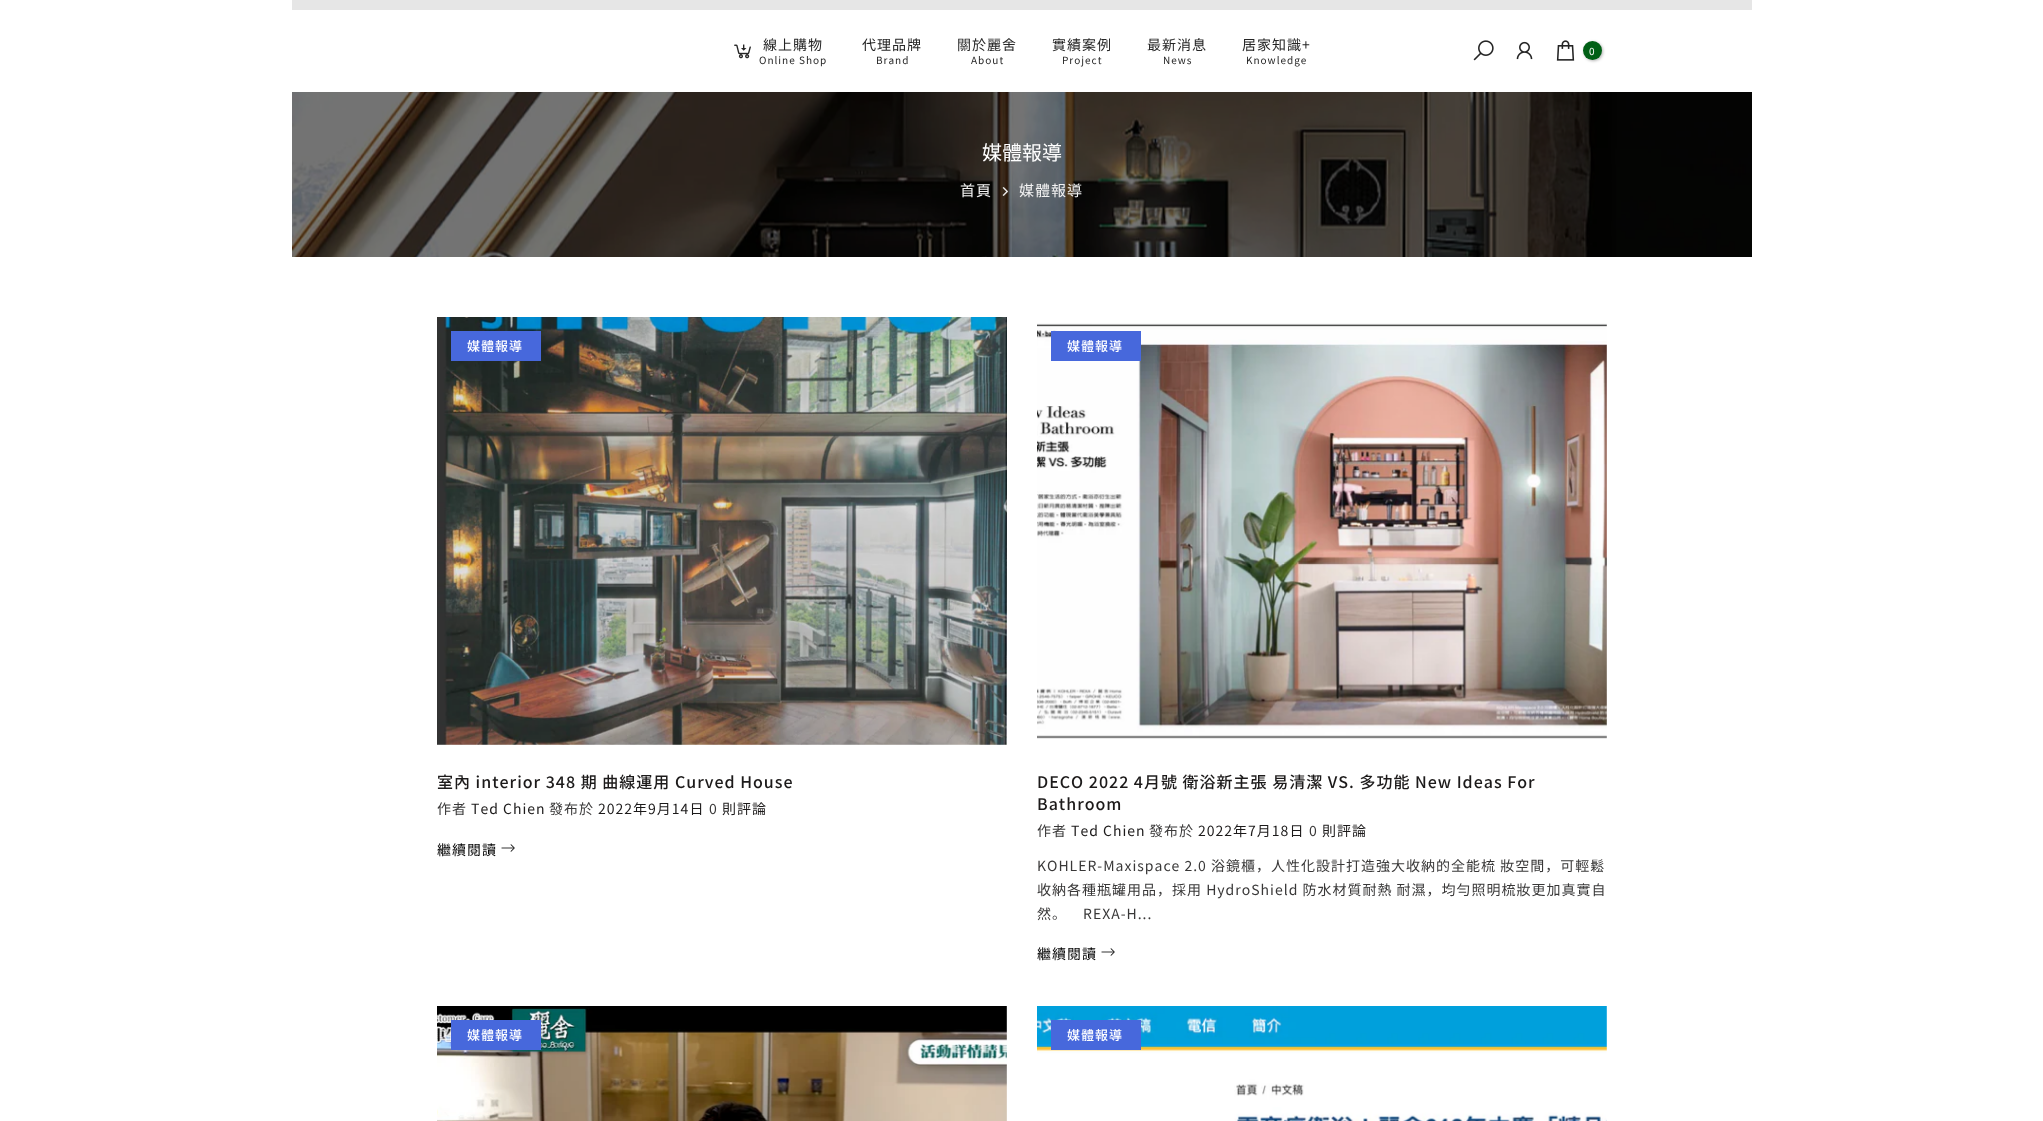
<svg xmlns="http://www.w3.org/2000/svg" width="2043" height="1121">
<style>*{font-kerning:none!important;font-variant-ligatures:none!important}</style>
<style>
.a{font:14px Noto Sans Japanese;letter-spacing:1px;fill:#252525}
.b{font:10px Noto Sans Japanese;letter-spacing:1px;fill:#252525}
.c{font:10px Noto Sans Japanese;fill:#fff}
.d{font:20px Noto Sans Japanese;fill:#fff}
.e{font:15px Noto Sans Japanese;letter-spacing:1px;fill:#f2f2f2}
.f{font:500 13px Noto Sans Japanese;letter-spacing:1px;fill:#fff}
.g{font:500 16px Noto Sans Japanese;letter-spacing:1px;fill:#1c1a1a}
.h{font:14px Noto Sans Japanese;letter-spacing:1px;fill:#393838}
.i{font:14px Noto Sans Japanese;letter-spacing:1px;fill:#1c1a1a}
.j{font:14px Noto Sans Japanese;letter-spacing:1px;fill:#000}
</style>
<rect width="100%" height="100%" fill="#fff"/>
<path fill="#e6e6e6" d="M292 0h1460v10H292z"/>
<image href="1.png" x="734" y="44" width="17" height="15"/>
<image href="2.png" x="1473" y="40" width="21" height="21"/>
<image href="3.png" x="1516" y="41" width="17" height="19"/>
<image href="4.png" x="1556" y="40" width="19" height="21"/>
<rect fill="#0000004d" filter="blur(1.5px)" x="1584" y="42" width="19" height="19" rx="9.5"/>
<circle fill="#005f15" cx="1592.5" cy="50.5" r="9.5"/>
<image href="5.png" x="292" y="92" width="1460" height="165"/>
<image href="6.png" x="1002" y="187" width="7" height="9"/>
<image href="7.png" x="437" y="317" width="570" height="428"/>
<path fill="#4768dc" d="M451 331h90v30H451z"/>
<image href="8.png" x="501" y="844" width="14" height="8"/>
<image href="9.png" x="1037" y="323" width="570" height="416"/>
<path fill="#4768dc" d="M1051 331h90v30H1051z"/>
<image href="8.png" x="1101" y="948" width="14" height="8"/>
<image href="10.png" x="437" y="1006" width="570" height="115"/>
<path fill="#4768dc" d="M451 1020h90v30H451z"/>
<image href="11.png" x="1037" y="1006" width="570" height="115"/>
<path fill="#4768dc" d="M1051 1020h90v30H1051z"/>
<text class="a" x="763" y="50">線上購物</text>
<text class="b" x="759" y="64">Online Shop</text>
<text class="a" x="862" y="50">代理品牌</text>
<text class="b" x="876" y="64">Brand</text>
<text class="a" x="957" y="50">關於麗舍</text>
<text class="b" x="971" y="64">About</text>
<text class="a" x="1052" y="50">實績案例</text>
<text class="b" x="1062" y="64">Project</text>
<text class="a" x="1147" y="50">最新消息</text>
<text class="b" x="1163" y="64">News</text>
<text class="a" x="1242" y="50">居家知識+</text>
<text class="b" x="1246" y="64">Knowledge</text>
<text class="c" x="1589" y="55">0</text>
<text class="d" x="982" y="160">媒體報導</text>
<text class="e" x="960" y="196">首頁</text>
<text class="e" x="1019" y="196">媒體報導</text>
<text class="f" x="467" y="351">媒體報導</text>
<text class="g" x="437" y="788">室內 interior 348 期 曲線運用 Curved House</text>
<text class="h" x="437" y="814">作者</text>
<text class="i" x="471" y="814">Ted Chien</text>
<text class="h" x="549" y="814">發布於</text>
<text class="i" x="598" y="814">2022年9月14日</text>
<text class="h" x="709" y="814">0</text>
<text class="i" x="722" y="814">則評論</text>
<text class="j" x="437" y="855">繼續閱讀</text>
<text class="f" x="1067" y="351">媒體報導</text>
<text class="g" x="1037" y="788">DECO 2022 4月號 衛浴新主張 易清潔 VS. 多功能 New Ideas For</text>
<text class="g" x="1037" y="810">Bathroom</text>
<text class="h" x="1037" y="836">作者</text>
<text class="i" x="1071" y="836">Ted Chien</text>
<text class="h" x="1149" y="836">發布於</text>
<text class="i" x="1198" y="836">2022年7月18日</text>
<text class="h" x="1309" y="836">0</text>
<text class="i" x="1322" y="836">則評論</text>
<text class="h" x="1037" y="871">KOHLER-Maxispace 2.0 浴鏡櫃，人性化設計打造強大收納的全能梳 妝空間，可輕鬆</text>
<text class="h" x="1037" y="895">收納各種瓶罐用品，採用 HydroShield 防水材質耐熱 耐濕，均勻照明梳妝更加真實自</text>
<text class="h" x="1037" y="919">然。</text>
<text class="h" x="1083" y="919">REXA-H...</text>
<text class="j" x="1037" y="959">繼續閱讀</text>
<text class="f" x="467" y="1040">媒體報導</text>
<text class="f" x="1067" y="1040">媒體報導</text>
</svg>
